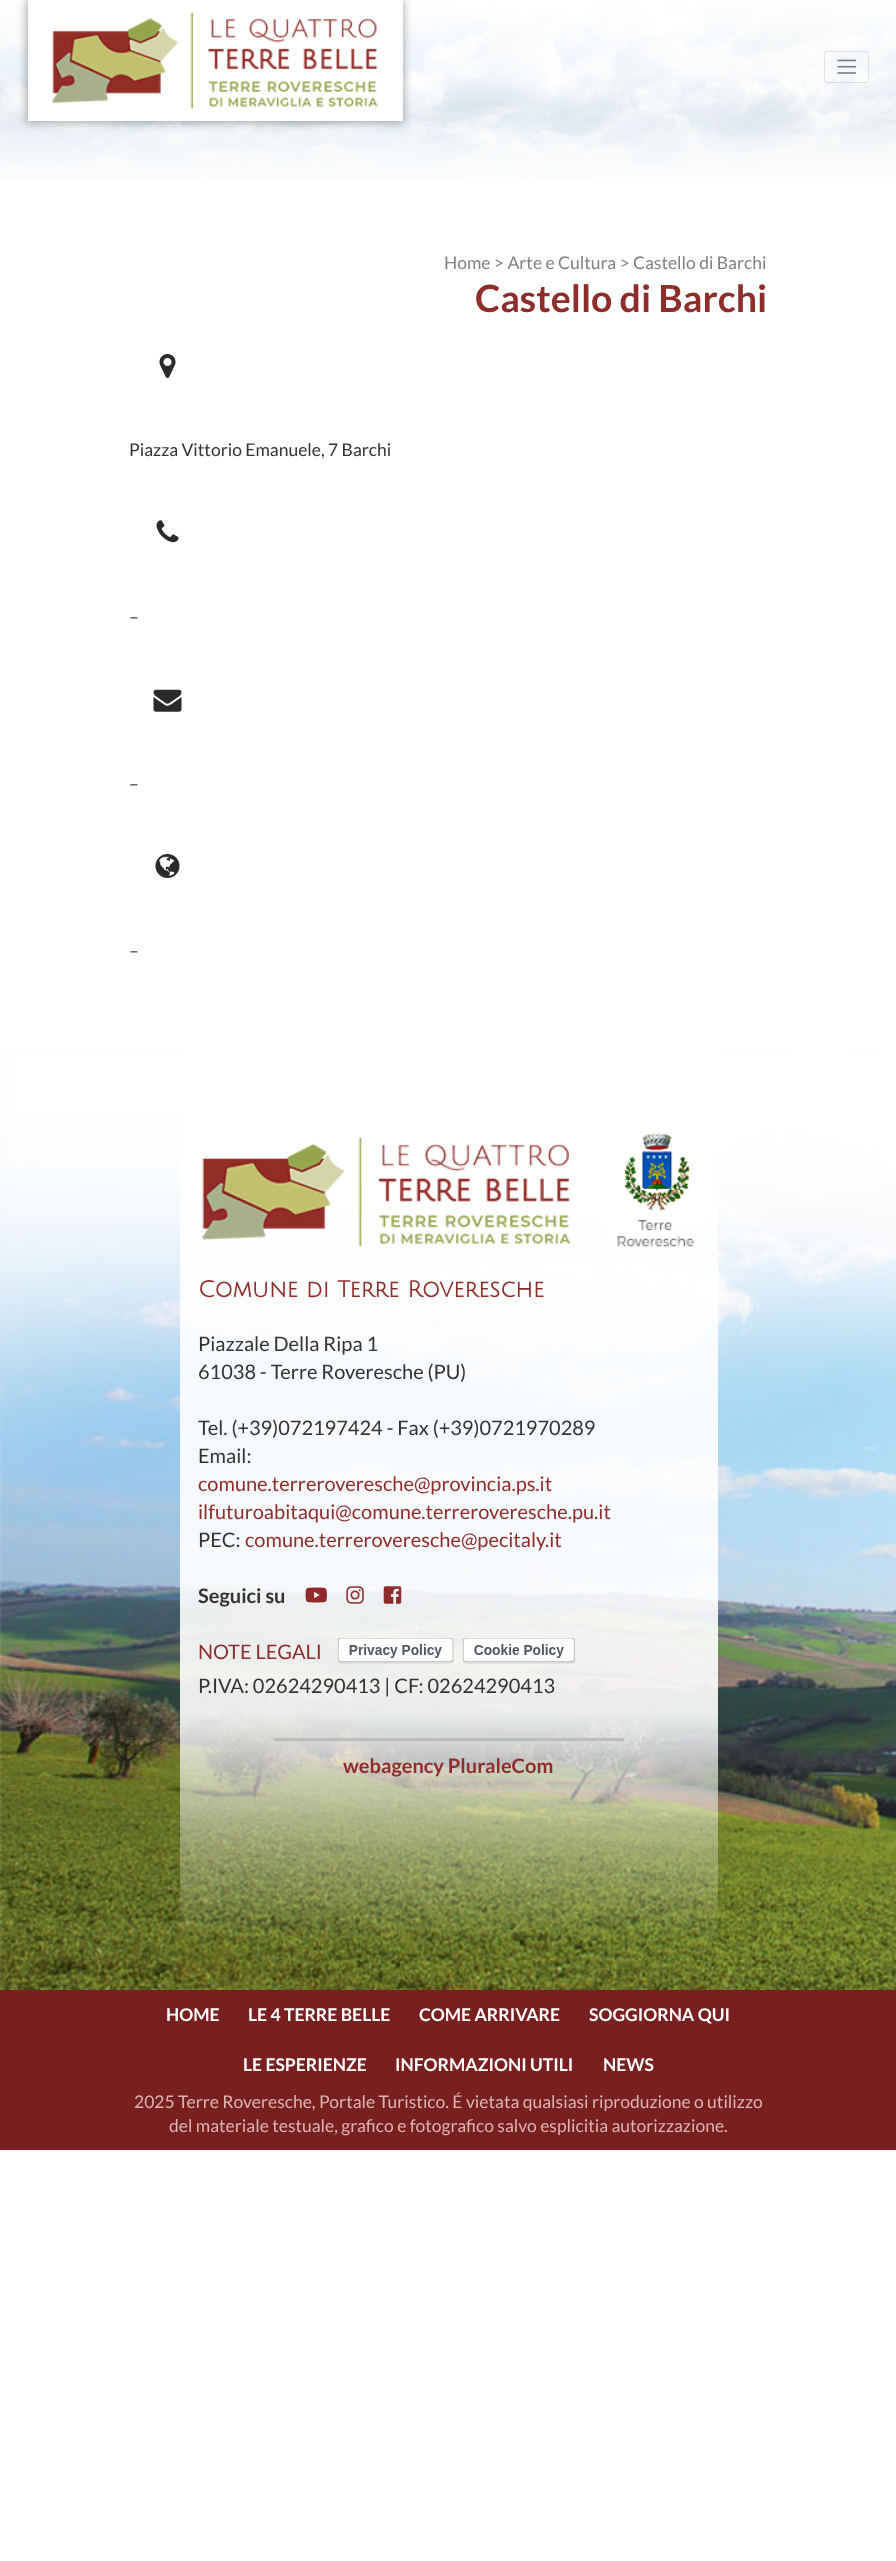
<svg xmlns="http://www.w3.org/2000/svg" width="896" height="2561">
<style>
.a{font:17.5px Lato;fill:#808080}
.b{font:bold 37.5px Lato;fill:#8e2d2a}
.c{font:17.5px Lato;fill:#333}
.d{font:bold 22.5px Julius Sans One;fill:#8e2d2a}
.e{font:20px Lato;fill:#333}
.f{font:20px Lato;fill:#8e2d2a}
.g{font:bold 20px Lato;fill:#333}
.h{font:bold 20px Lato;fill:#8e2d2a}
.i{font:bold 17.5px Lato;fill:#fff}
.j{font:17.5px Lato;fill:#dcb6ad}
</style>
<rect width="100%" height="100%" fill="#fff"/>
<image href="1.png" x="0" y="0" width="896" height="180"/>
<path fill="#0000004d" filter="blur(4.5px)" d="M26 -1h378v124H26z"/>
<path fill="#fff" d="M28 0h375v121H28z"/>
<image href="2.png" x="52" y="12" width="326" height="97"/>
<rect fill="none" stroke="#0000001a" x="824.5" y="51.5" width="44" height="31" rx="2.5"/>
<image href="3.png" x="837" y="59" width="20" height="15"/>
<image href="4.png" x="159" y="354" width="17" height="24"/>
<image href="5.png" x="156" y="520" width="23" height="23"/>
<image href="6.png" x="153" y="689" width="29" height="23"/>
<image href="7.png" x="155" y="854" width="25" height="24"/>
<image href="8.png" x="0" y="1050" width="896" height="940"/>
<image href="9.png" x="202" y="1132" width="492" height="115"/>
<image href="10.png" x="305" y="1587" width="22" height="16"/>
<image href="11.png" x="346" y="1586" width="18" height="18"/>
<image href="12.png" x="383" y="1586" width="19" height="18"/>
<image href="13.png" x="337" y="1638" width="117" height="26"/>
<image href="14.png" x="462" y="1638" width="113" height="26"/>
<path fill="#bdbdbd" d="M274 1738h350v3H274z"/>
<path fill="#78201f" d="M0 1990h896v160H0z"/>
<text class="a" x="444" y="269">Home &gt; Arte e Cultura &gt; Castello di Barchi</text>
<text class="b" x="475" y="312">Castello di Barchi</text>
<text class="c" x="129" y="456">Piazza Vittorio Emanuele, 7 Barchi</text>
<text class="c" x="129" y="623">–</text>
<text class="c" x="129" y="790">–</text>
<text class="c" x="129" y="957">–</text>
<text class="d" x="198" y="1297">Comune di Terre Roveresche</text>
<text class="e" x="198" y="1351">Piazzale Della Ripa 1</text>
<text class="e" x="198" y="1379">61038 - Terre Roveresche (PU)</text>
<text class="e" x="198" y="1435">Tel. (+39)072197424 - Fax (+39)0721970289</text>
<text class="e" x="198" y="1463">Email:</text>
<text class="f" x="198" y="1491">comune.terreroveresche@provincia.ps.it</text>
<text class="f" x="198" y="1519">ilfuturoabitaqui@comune.terreroveresche.pu.it</text>
<text class="e" x="198" y="1547">PEC:</text>
<text class="f" x="245" y="1547">comune.terreroveresche@pecitaly.it</text>
<text class="g" x="198" y="1603">Seguici su</text>
<text class="f" x="198" y="1659">NOTE LEGALI</text>
<text class="e" x="198" y="1693">P.IVA: 02624290413 | CF: 02624290413</text>
<text class="h" x="343" y="1773">webagency PluraleCom</text>
<text class="i" x="166" y="2021">HOME</text>
<text class="i" x="248" y="2021">LE 4 TERRE BELLE</text>
<text class="i" x="419" y="2021">COME ARRIVARE</text>
<text class="i" x="589" y="2021">SOGGIORNA QUI</text>
<text class="i" x="243" y="2071">LE ESPERIENZE</text>
<text class="i" x="395" y="2071">INFORMAZIONI UTILI</text>
<text class="i" x="603" y="2071">NEWS</text>
<text class="j" x="134" y="2108">2025 Terre Roveresche, Portale Turistico. É vietata qualsiasi riproduzione o utilizzo</text>
<text class="j" x="169" y="2132">del materiale testuale, grafico e fotografico salvo esplicitia autorizzazione.</text>
</svg>
